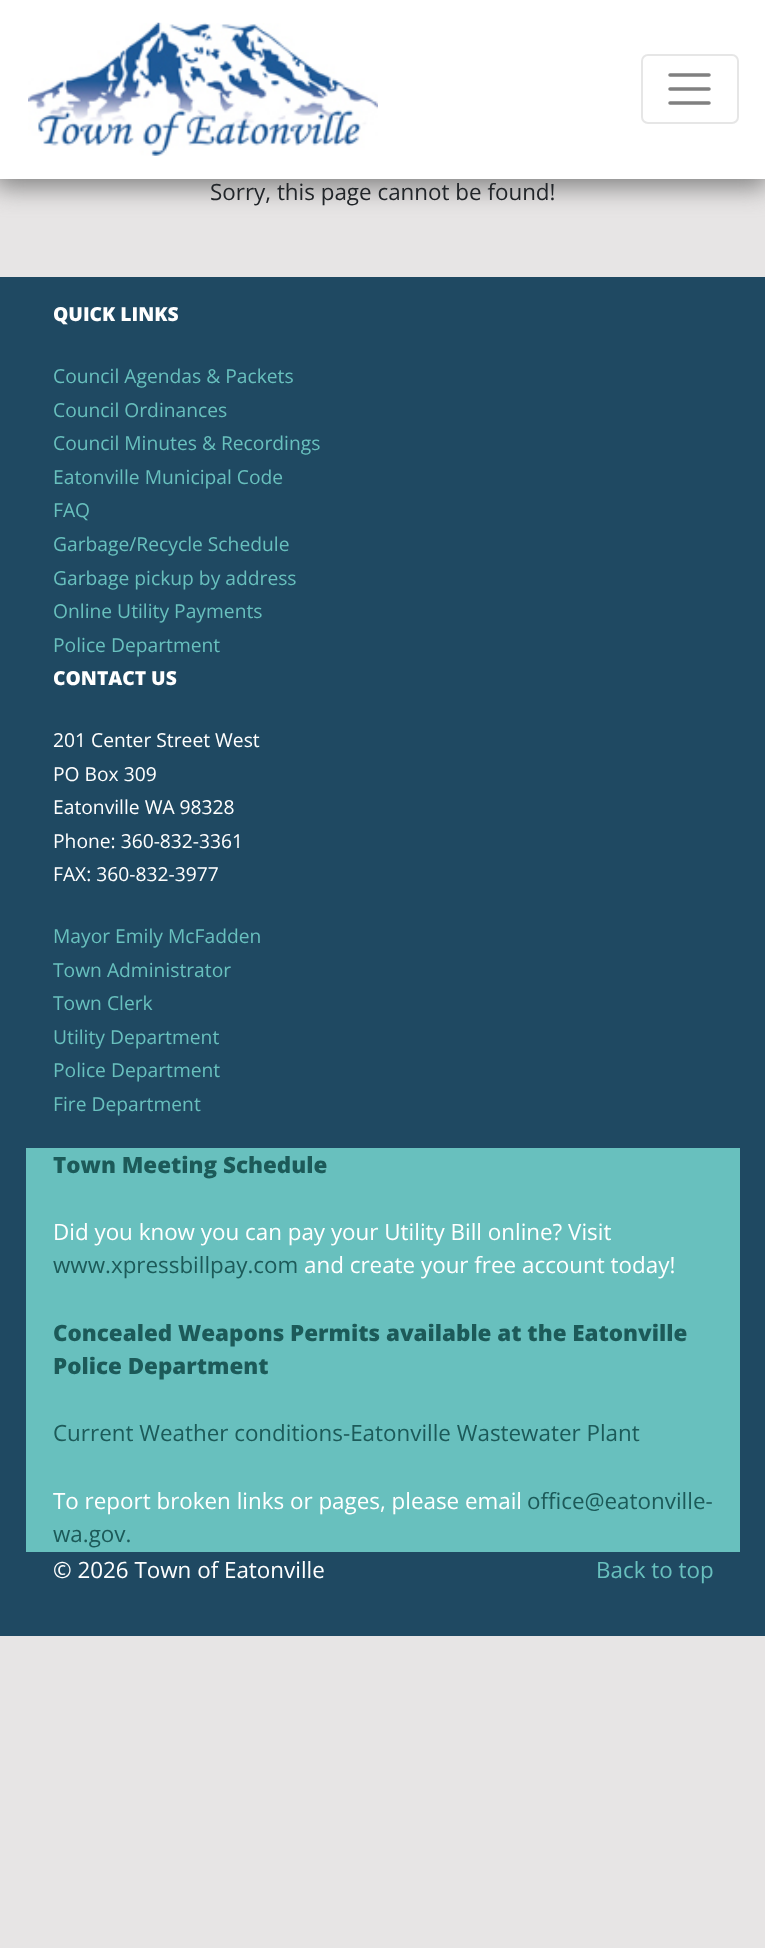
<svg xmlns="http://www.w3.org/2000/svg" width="765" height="1948">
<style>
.a{font:22.4px Open Sans;fill:#212529}
.b{font:800 19.25px Open Sans;fill:#fff}
.c{font:19.25px Open Sans;fill:#68c0be}
.d{font:19.25px Open Sans;fill:#fff}
.e{font:800 22.4px Open Sans;fill:#1c5a59}
.f{font:22.4px Open Sans;fill:#fff}
.g{font:22.4px Open Sans;fill:#1c5a59}
.h{font:22.4px Open Sans;fill:#68c0be}
</style>
<rect width="100%" height="100%" fill="#e7e5e5"/>
<path fill="#808080" filter="blur(13px)" d="M-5 2h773v185H-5z"/>
<path fill="#fff" d="M0 0h765v179H0z"/>
<image href="1.png" x="28" y="22" width="350" height="134"/>
<rect fill="none" stroke="#e6e6e6" stroke-width="2" x="642" y="55" width="96" height="68" rx="6"/>
<path fill="none" stroke="#808080" stroke-width="3.5" stroke-linecap="round" d="M670 75h39m-39 14h39m-39 14h39"/>
<path fill="#1f4962" d="M0 277h765v1359H0z"/>
<path fill="#68c0be" d="M26 1148h714v404H26z"/>
<text class="a" x="210" y="200">Sorry, this page cannot be found!</text>
<text class="b" x="53" y="321">QUICK LINKS</text>
<text class="c" x="53" y="383">Council Agendas &amp; Packets</text>
<text class="c" x="53" y="417">Council Ordinances</text>
<text class="c" x="53" y="450">Council Minutes &amp; Recordings</text>
<text class="c" x="53" y="484">Eatonville Municipal Code</text>
<text class="c" x="53" y="517">FAQ</text>
<text class="c" x="53" y="551">Garbage/Recycle Schedule</text>
<text class="c" x="53" y="585">Garbage pickup by address</text>
<text class="c" x="53" y="618">Online Utility Payments</text>
<text class="c" x="53" y="652">Police Department</text>
<text class="b" x="53" y="685">CONTACT US</text>
<text class="d" x="53" y="747">201 Center Street West</text>
<text class="d" x="53" y="781">PO Box 309</text>
<text class="d" x="53" y="814">Eatonville WA 98328</text>
<text class="d" x="53" y="848">Phone: 360-832-3361</text>
<text class="d" x="53" y="881">FAX: 360-832-3977</text>
<text class="c" x="53" y="943">Mayor Emily McFadden</text>
<text class="c" x="53" y="977">Town Administrator</text>
<text class="c" x="53" y="1010">Town Clerk</text>
<text class="c" x="53" y="1044">Utility Department</text>
<text class="c" x="53" y="1077">Police Department</text>
<text class="c" x="53" y="1111">Fire Department</text>
<text class="e" x="53" y="1173">Town Meeting Schedule</text>
<text class="f" x="53" y="1240">Did you know you can pay your Utility Bill online? Visit</text>
<text class="g" x="53" y="1273">www.xpressbillpay.com</text>
<text class="f" x="304" y="1273">and create your free account today!</text>
<text class="e" x="53" y="1341">Concealed Weapons Permits available at the Eatonville</text>
<text class="e" x="53" y="1374">Police Department</text>
<text class="g" x="53" y="1441">Current Weather conditions-Eatonville Wastewater Plant</text>
<text class="f" x="53" y="1509">To report broken links or pages, please email</text>
<text class="g" x="527" y="1509">office@eatonville-</text>
<text class="g" x="53" y="1542">wa.gov.</text>
<text class="f" x="53" y="1578">© 2026 Town of Eatonville</text>
<text class="h" x="596" y="1578">Back to top</text>
</svg>
